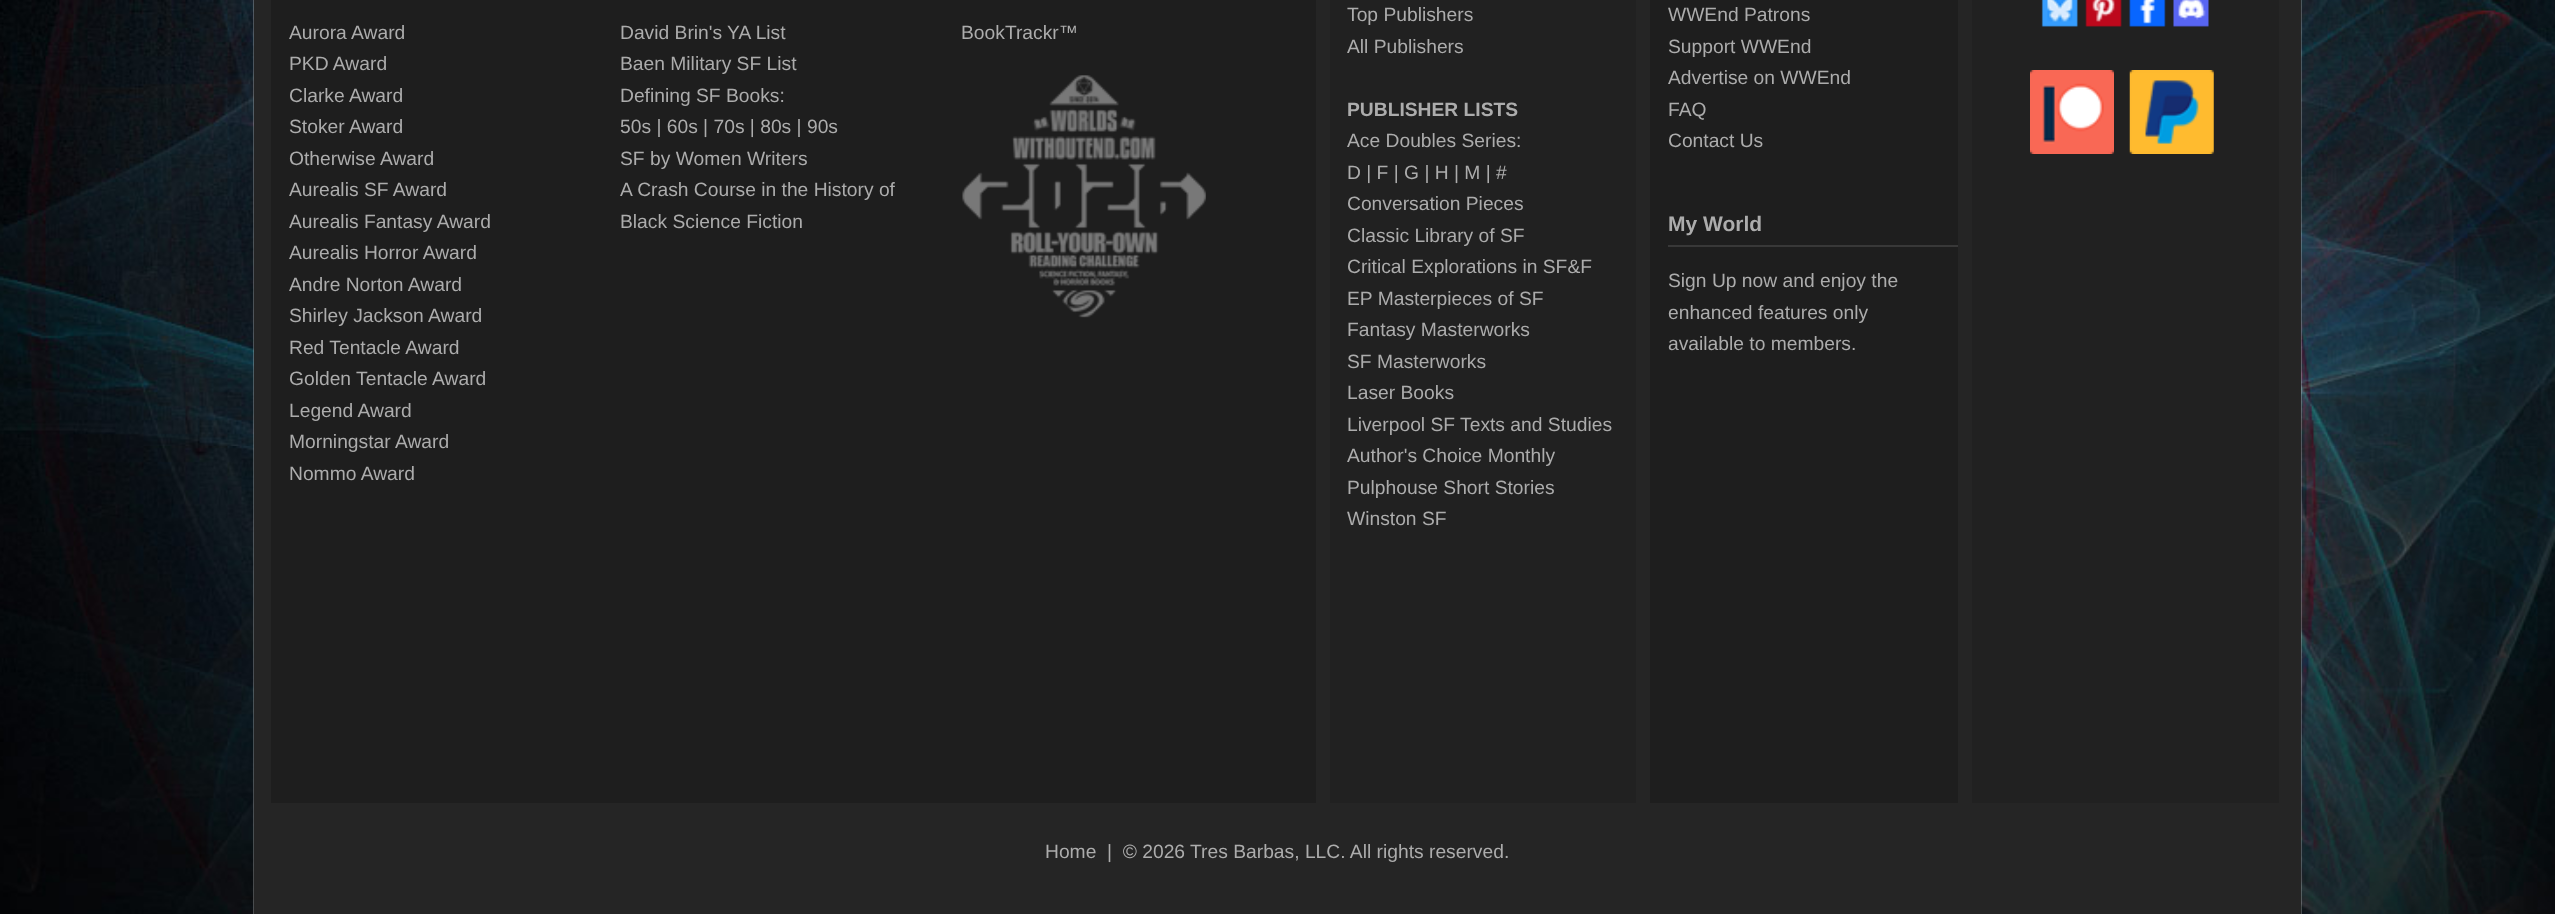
<svg xmlns="http://www.w3.org/2000/svg" width="2555" height="914">
<style>
.a{font:19.25px Liberation Sans;fill:#acacac}
.b{font:bold 19.25px Liberation Sans;fill:#acacac}
.c{font:bold 21px Liberation Sans;fill:#acacac}
</style>
<rect width="100%" height="100%" fill="#fff"/>
<image href="1.png" x="0" y="0" width="2555" height="914"/>
<image href="2.png" x="253" y="0" width="2049" height="914"/>
<path fill="#252525" d="M254 0h2047v914H254z"/>
<path fill="#1e1e1e" d="M271 0h1045v803H271z"/>
<image href="3.png" x="962" y="75" width="244" height="243"/>
<path fill="#212121" d="M1330 0h306v803H1330z"/>
<path fill="#1e1e1e" d="M1650 0h308v803H1650z"/>
<path fill="#383838" d="M1668 245h290v2H1668z"/>
<path fill="#212121" d="M1972 0h307v803H1972z"/>
<image href="4.png" x="2041" y="0" width="168" height="27"/>
<image href="5.png" x="2030" y="70" width="84" height="84"/>
<image href="6.png" x="2129" y="70" width="85" height="84"/>
<text class="a" x="289" y="39">Aurora Award</text>
<text class="a" x="289" y="70">PKD Award</text>
<text class="a" x="289" y="102">Clarke Award</text>
<text class="a" x="289" y="133">Stoker Award</text>
<text class="a" x="289" y="165">Otherwise Award</text>
<text class="a" x="289" y="196">Aurealis SF Award</text>
<text class="a" x="289" y="228">Aurealis Fantasy Award</text>
<text class="a" x="289" y="259">Aurealis Horror Award</text>
<text class="a" x="289" y="291">Andre Norton Award</text>
<text class="a" x="289" y="322">Shirley Jackson Award</text>
<text class="a" x="289" y="354">Red Tentacle Award</text>
<text class="a" x="289" y="385">Golden Tentacle Award</text>
<text class="a" x="289" y="417">Legend Award</text>
<text class="a" x="289" y="448">Morningstar Award</text>
<text class="a" x="289" y="480">Nommo Award</text>
<text class="a" x="620" y="39">David Brin's YA List</text>
<text class="a" x="620" y="70">Baen Military SF List</text>
<text class="a" x="620" y="102">Defining SF Books:</text>
<text class="a" x="620" y="133">50s | 60s | 70s | 80s | 90s</text>
<text class="a" x="620" y="165">SF by Women Writers</text>
<text class="a" x="620" y="196">A Crash Course in the History of</text>
<text class="a" x="620" y="228">Black Science Fiction</text>
<text class="a" x="961" y="39">BookTrackr™</text>
<text class="a" x="1347" y="21">Top Publishers</text>
<text class="a" x="1347" y="53">All Publishers</text>
<text class="b" x="1347" y="116">PUBLISHER LISTS</text>
<text class="a" x="1347" y="147">Ace Doubles Series:</text>
<text class="a" x="1347" y="179">D | F | G | H | M | #</text>
<text class="a" x="1347" y="210">Conversation Pieces</text>
<text class="a" x="1347" y="242">Classic Library of SF</text>
<text class="a" x="1347" y="273">Critical Explorations in SF&amp;F</text>
<text class="a" x="1347" y="305">EP Masterpieces of SF</text>
<text class="a" x="1347" y="336">Fantasy Masterworks</text>
<text class="a" x="1347" y="368">SF Masterworks</text>
<text class="a" x="1347" y="399">Laser Books</text>
<text class="a" x="1347" y="431">Liverpool SF Texts and Studies</text>
<text class="a" x="1347" y="462">Author's Choice Monthly</text>
<text class="a" x="1347" y="494">Pulphouse Short Stories</text>
<text class="a" x="1347" y="525">Winston SF</text>
<text class="a" x="1668" y="21">WWEnd Patrons</text>
<text class="a" x="1668" y="53">Support WWEnd</text>
<text class="a" x="1668" y="84">Advertise on WWEnd</text>
<text class="a" x="1668" y="116">FAQ</text>
<text class="a" x="1668" y="147">Contact Us</text>
<text class="c" x="1668" y="231">My World</text>
<text class="a" x="1668" y="287">Sign Up now and enjoy the</text>
<text class="a" x="1668" y="319">enhanced features only</text>
<text class="a" x="1668" y="350">available to members.</text>
<text class="a" x="1045" y="858">Home</text>
<text class="a" xml:space="preserve" x="1107" y="858">|  © 2026 Tres Barbas, LLC. All rights reserved.</text>
</svg>
